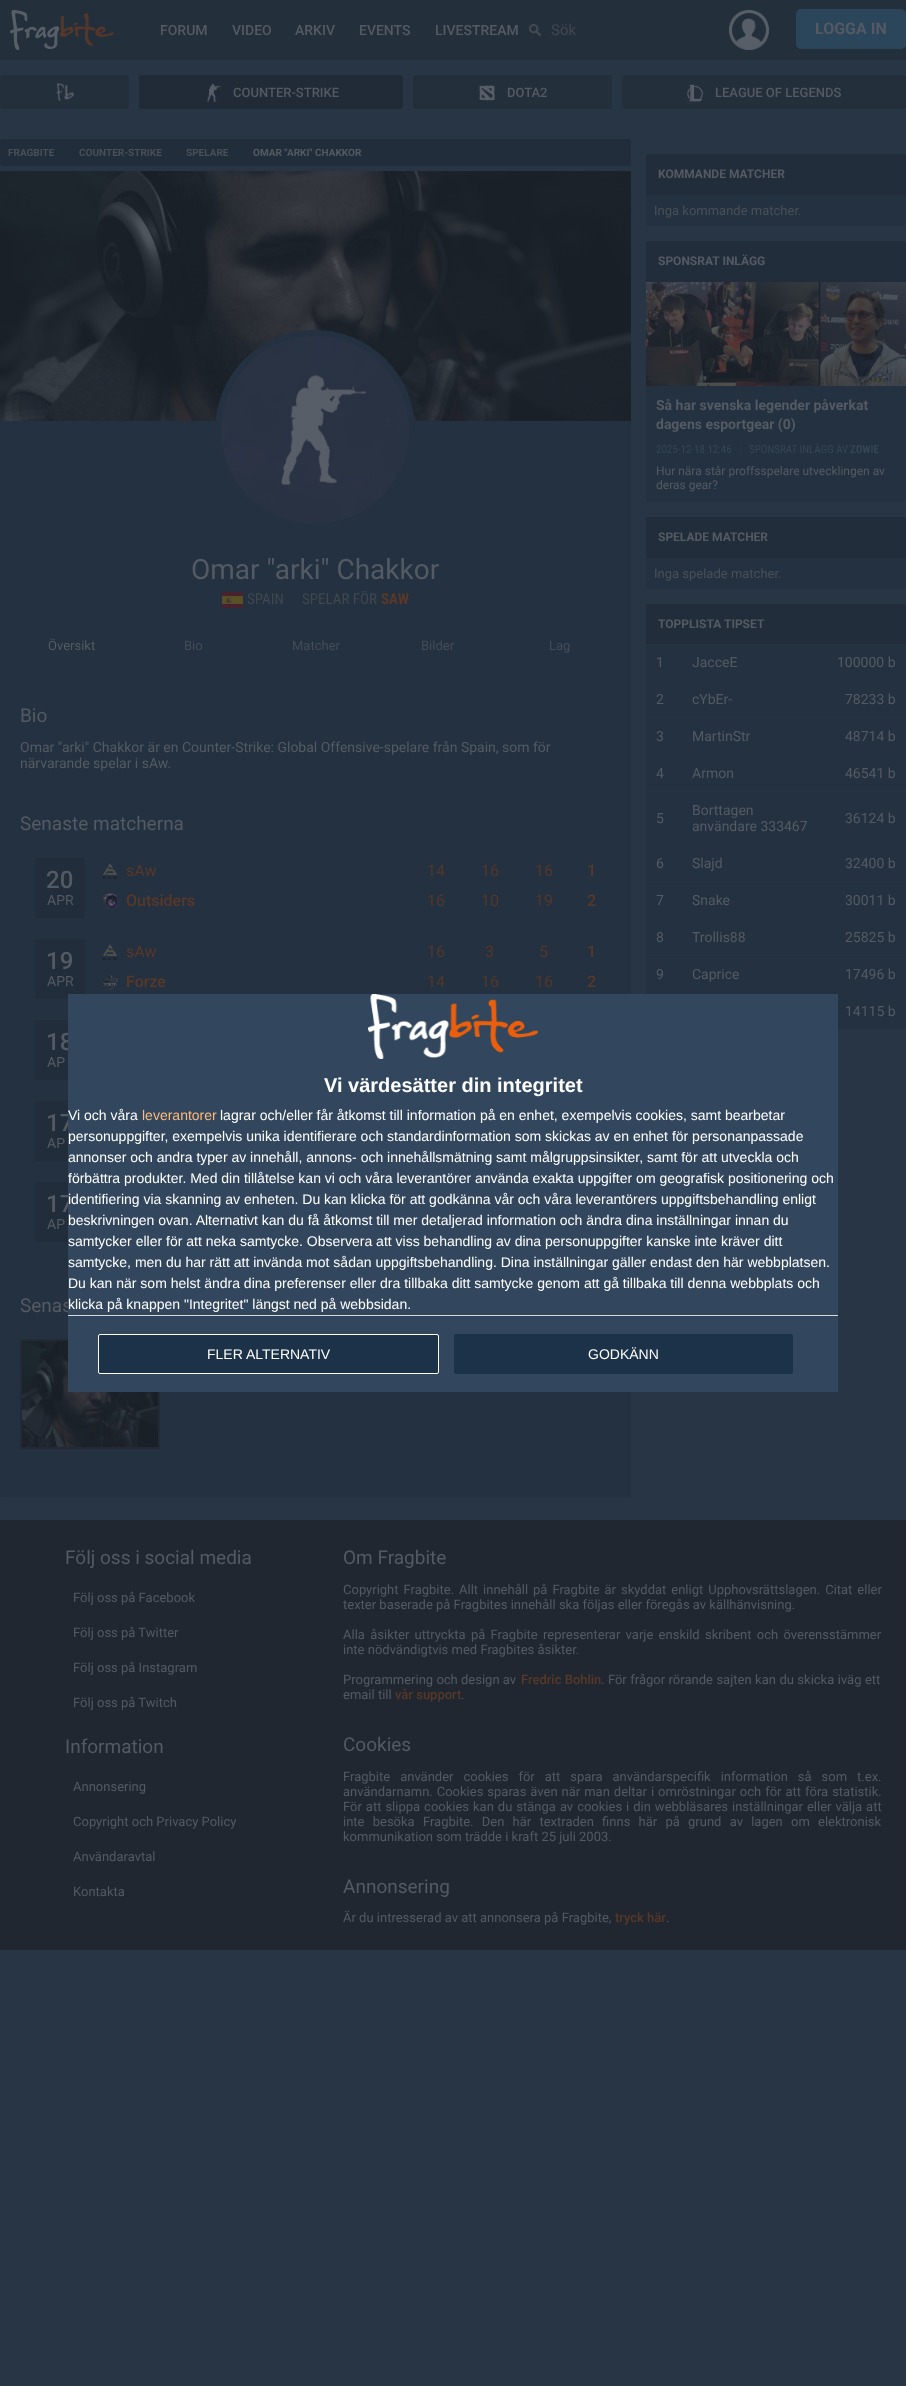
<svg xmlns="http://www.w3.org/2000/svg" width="906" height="2386">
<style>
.a{font:500 14px Roboto;fill:#545a63}
.b{font:15px Roboto;fill:#414750}
.c{font:bold 16px Roboto;fill:#545a63}
.d{font:500 13px Roboto;fill:#545a63}
.e{font:bold 10px Roboto;fill:#494f57}
.f{font:bold 10px Roboto;fill:#545a63}
.g{font:28px Roboto;fill:#545a63}
.h{font:15px Roboto Condensed;fill:#414750}
.i{font:bold 15px Roboto Condensed;fill:#593827}
.j{font:13px Roboto;fill:#545a63}
.k{font:13px Roboto;fill:#434c57}
.l{font:19px Roboto;fill:#545a63}
.m{font:14px Roboto;fill:#545a63}
.n{font:500 24px Roboto;fill:#545a63}
.o{font:16px Roboto;fill:#593827}
.p{font:16px Roboto;fill:#533729}
.q{font:500 16px Roboto;fill:#593827}
.r{font:bold 12px Roboto;fill:#545a63}
.s{font:13px Roboto;fill:#494f57}
.t{font:bold 14px Roboto;fill:#545a63}
.u{font:11px Roboto Condensed;fill:#354654}
.v{font:bold 11px Roboto Condensed;fill:#354654}
.w{font:12px Roboto;fill:#545a63}
.x{font:500 13px Roboto;fill:#593827}
.y{font:bold 20px Liberation Sans;fill:#fff}
.z{font:14px Liberation Sans;fill:#fff}
.a1{font:14px Liberation Sans;fill:#ffba7d}
</style>
<rect width="100%" height="100%" fill="#283544"/>
<path fill="#242f3c" d="M0 0h906v60H0z"/>
<image href="1.png" x="10" y="10" width="104" height="40"/>
<image href="2.png" x="529" y="24" width="12" height="12"/>
<image href="3.png" x="729" y="10" width="40" height="40"/>
<rect fill="#2b465a" x="796" y="9" width="110" height="40" rx="5"/>
<rect fill="#242f3c" y="75" width="129" height="34" rx="3"/>
<image href="4.png" x="56" y="83" width="18" height="18"/>
<rect fill="#212b37" x="139" y="75" width="264" height="34" rx="3"/>
<image href="5.png" x="207" y="84" width="15" height="18"/>
<rect fill="#242f3c" x="413" y="75" width="199" height="34" rx="3"/>
<image href="6.png" x="479" y="85" width="16" height="16"/>
<rect fill="#242f3c" x="622" y="75" width="284" height="34" rx="3"/>
<image href="7.png" x="687" y="84" width="17" height="18"/>
<rect fill="#222d3b" y="139" width="631" height="27" rx="2"/>
<rect fill="#243140" y="171" width="631" height="1326" rx="2"/>
<image href="8.png" x="0" y="171" width="631" height="250"/>
<circle fill="#293343" stroke="#243140" stroke-width="6" cx="315" cy="430" r="97"/>
<image href="9.png" x="221" y="336" width="188" height="188"/>
<image href="10.png" x="222" y="592" width="21" height="16"/>
<path fill="#222d3b" d="M35 858h50v60H35z"/>
<image href="11.png" x="102" y="863" width="16" height="16"/>
<image href="12.png" x="102" y="893" width="16" height="16"/>
<path fill="#222d3b" d="M35 939h50v60H35z"/>
<image href="11.png" x="102" y="944" width="16" height="16"/>
<image href="13.png" x="102" y="974" width="16" height="16"/>
<path fill="#222d3b" d="M35 1020h33v60H35z"/>
<path fill="#222d3b" d="M35 1101h33v60H35z"/>
<path fill="#222d3b" d="M35 1182h33v60H35z"/>
<image href="14.png" x="22" y="1341" width="136" height="106"/>
<path fill="none" stroke="#232a36" stroke-width="2" d="M21 1340h138v108H21z"/>
<rect fill="#243140" x="646" y="154" width="260" height="72" rx="3"/>
<path fill="#222d3b" d="M649 154h254c1.5 0 3 1.5 3 3v38h-260v-38c0-1.5 1.5-3 3-3z"/>
<rect fill="#243140" x="646" y="241" width="260" height="261" rx="3"/>
<path fill="#222d3b" d="M649 241h254c1.5 0 3 1.5 3 3v38h-260v-38c0-1.5 1.5-3 3-3z"/>
<image href="15.png" x="646" y="282" width="260" height="104"/>
<path fill="#2b3643" d="M740 443h1v13H740z"/>
<rect fill="#243140" x="646" y="517" width="260" height="72" rx="3"/>
<path fill="#222d3b" d="M649 517h254c1.5 0 3 1.5 3 3v38h-260v-38c0-1.5 1.5-3 3-3z"/>
<rect fill="#243140" x="646" y="604" width="260" height="425" rx="3"/>
<path fill="#222d3b" d="M649 604h254c1.5 0 3 1.5 3 3v37h-260v-37c0-1.5 1.5-3 3-3z"/>
<path fill="#273342" d="M646 717h260v1H646z"/>
<path fill="#273342" d="M646 791h260v1H646z"/>
<path fill="#273342" d="M646 881h260v1H646z"/>
<path fill="#273342" d="M646 955h260v1H646z"/>
<path fill="#202731" d="M0 1520h906v430H0z"/>
<text class="a" x="160" y="35">FORUM</text>
<text class="a" x="232" y="35">VIDEO</text>
<text class="a" x="295" y="35">ARKIV</text>
<text class="a" x="359" y="35">EVENTS</text>
<text class="a" x="435" y="35">LIVESTREAM</text>
<text class="b" x="551" y="35">Sök</text>
<text class="c" x="815" y="34">LOGGA IN</text>
<text class="d" x="233" y="97">COUNTER-STRIKE</text>
<text class="d" x="507" y="97">DOTA2</text>
<text class="d" x="715" y="97">LEAGUE OF LEGENDS</text>
<text class="e" x="8" y="156">FRAGBITE</text>
<text class="e" x="79" y="156">COUNTER-STRIKE</text>
<text class="e" x="186" y="156">SPELARE</text>
<text class="f" x="253" y="156">OMAR "ARKI" CHAKKOR</text>
<text class="g" x="191" y="579">Omar "arki" Chakkor</text>
<text class="h" x="247" y="604">SPAIN</text>
<text class="h" x="302" y="604">SPELAR FÖR</text>
<text class="i" x="381" y="604">SAW</text>
<text class="j" x="48" y="650">Översikt</text>
<text class="k" x="184" y="650">Bio</text>
<text class="k" x="292" y="650">Matcher</text>
<text class="k" x="421" y="650">Bilder</text>
<text class="k" x="549" y="650">Lag</text>
<text class="l" x="20" y="722">Bio</text>
<text class="m" x="20" y="752">Omar "arki" Chakkor är en Counter-Strike: Global Offensive-spelare från Spain, som för</text>
<text class="m" x="20" y="768">närvarande spelar i sAw.</text>
<text class="l" x="20" y="830">Senaste matcherna</text>
<text class="n" x="46" y="888">20</text>
<text class="m" x="47" y="905">APR</text>
<text class="o" x="126" y="876">sAw</text>
<text class="p" x="427" y="876">14</text>
<text class="p" x="481" y="876">16</text>
<text class="p" x="535" y="876">16</text>
<text class="q" x="587" y="876">1</text>
<text class="q" x="126" y="906">Outsiders</text>
<text class="p" x="427" y="906">16</text>
<text class="p" x="481" y="906">10</text>
<text class="p" x="535" y="906">19</text>
<text class="q" x="587" y="906">2</text>
<text class="n" x="46" y="969">19</text>
<text class="m" x="47" y="986">APR</text>
<text class="o" x="126" y="957">sAw</text>
<text class="p" x="427" y="957">16</text>
<text class="p" x="485" y="957">3</text>
<text class="p" x="539" y="957">5</text>
<text class="q" x="587" y="957">1</text>
<text class="q" x="126" y="987">Forze</text>
<text class="p" x="427" y="987">14</text>
<text class="p" x="481" y="987">16</text>
<text class="p" x="535" y="987">16</text>
<text class="q" x="587" y="987">2</text>
<text class="n" x="46" y="1050">18</text>
<text class="m" x="47" y="1067">AP</text>
<text class="n" x="46" y="1131">17</text>
<text class="m" x="47" y="1148">AP</text>
<text class="n" x="46" y="1212">17</text>
<text class="m" x="47" y="1229">AP</text>
<text class="l" x="20" y="1312">Senas</text>
<text class="r" x="658" y="178">KOMMANDE MATCHER</text>
<text class="s" x="654" y="215">Inga kommande matcher.</text>
<text class="r" x="658" y="265">SPONSRAT INLÄGG</text>
<text class="t" x="656" y="410">Så har svenska legender påverkat</text>
<text class="t" x="656" y="429">dagens esportgear (0)</text>
<text class="u" x="656" y="453">2025-12-18 12:46</text>
<text class="u" x="749" y="453">SPONSRAT INLÄGG AV</text>
<text class="v" x="850" y="453">ZOWIE</text>
<text class="w" x="656" y="475">Hur nära står proffsspelare utvecklingen av</text>
<text class="w" x="656" y="489">deras gear?</text>
<text class="r" x="658" y="541">SPELADE MATCHER</text>
<text class="s" x="654" y="578">Inga spelade matcher.</text>
<text class="r" x="658" y="628">TOPPLISTA TIPSET</text>
<text class="m" x="656" y="667">1</text>
<text class="m" x="692" y="667">JacceE</text>
<text class="m" x="837" y="667">100000 b</text>
<text class="m" x="656" y="704">2</text>
<text class="m" x="692" y="704">cYbEr-</text>
<text class="m" x="845" y="704">78233 b</text>
<text class="m" x="656" y="741">3</text>
<text class="m" x="692" y="741">MartinStr</text>
<text class="m" x="845" y="741">48714 b</text>
<text class="m" x="656" y="778">4</text>
<text class="m" x="692" y="778">Armon</text>
<text class="m" x="845" y="778">46541 b</text>
<text class="m" x="656" y="823">5</text>
<text class="m" x="692" y="815">Borttagen</text>
<text class="m" x="692" y="831">användare 333467</text>
<text class="m" x="845" y="823">36124 b</text>
<text class="m" x="656" y="868">6</text>
<text class="m" x="692" y="868">Slajd</text>
<text class="m" x="845" y="868">32400 b</text>
<text class="m" x="656" y="905">7</text>
<text class="m" x="692" y="905">Snake</text>
<text class="m" x="845" y="905">30011 b</text>
<text class="m" x="656" y="942">8</text>
<text class="m" x="692" y="942">Trollis88</text>
<text class="m" x="845" y="942">25825 b</text>
<text class="m" x="656" y="979">9</text>
<text class="m" x="692" y="979">Caprice</text>
<text class="m" x="845" y="979">17496 b</text>
<text class="m" x="845" y="1016">14115 b</text>
<text class="l" x="65" y="1564">Följ oss i social media</text>
<text class="j" x="73" y="1602">Följ oss på Facebook</text>
<text class="j" x="73" y="1637">Följ oss på Twitter</text>
<text class="j" x="73" y="1672">Följ oss på Instagram</text>
<text class="j" x="73" y="1707">Följ oss på Twitch</text>
<text class="l" x="65" y="1753">Information</text>
<text class="j" x="73" y="1791">Annonsering</text>
<text class="j" x="73" y="1826">Copyright och Privacy Policy</text>
<text class="j" x="73" y="1861">Användaravtal</text>
<text class="j" x="73" y="1896">Kontakta</text>
<text class="l" x="343" y="1564">Om Fragbite</text>
<text class="j" x="343" y="1594" word-spacing="1.75">Copyright Fragbite. Allt innehåll på Fragbite är skyddat enligt Upphovsrättslagen. Citat eller</text>
<text class="j" x="343" y="1609">texter baserade på Fragbites innehåll ska följas eller föregås av källhänvisning.</text>
<text class="j" x="343" y="1639" word-spacing="2.1">Alla åsikter uttryckta på Fragbite representerar varje enskild skribent och överensstämmer</text>
<text class="j" x="343" y="1654">inte nödvändigtvis med Fragbites åsikter.</text>
<text class="j" x="343" y="1684">Programmering och design av</text>
<text class="x" x="521" y="1684">Fredric Bohlin</text>
<text class="j" x="601" y="1684" word-spacing="0.25">. För frågor rörande sajten kan du skicka iväg ett</text>
<text class="j" x="343" y="1699">email till</text>
<text class="x" x="395" y="1699">vår support</text>
<text class="j" x="461" y="1699">.</text>
<text class="l" x="343" y="1751">Cookies</text>
<text class="j" x="343" y="1781" word-spacing="6.75">Fragbite använder cookies för att spara användarspecifik information så som t.ex.</text>
<text class="j" x="343" y="1796" word-spacing="0.75">användarnamn. Cookies sparas även när man deltar i omröstningar och för att föra statistik.</text>
<text class="j" x="343" y="1811" word-spacing="0.75">För att slippa cookies kan du stänga av cookies i din webbläsares inställningar eller välja att</text>
<text class="j" x="343" y="1826" word-spacing="5">inte besöka Fragbite. Den här textraden finns här på grund av lagen om elektronisk</text>
<text class="j" x="343" y="1841">kommunikation som trädde i kraft 25 juli 2003.</text>
<text class="l" x="343" y="1893">Annonsering</text>
<text class="j" x="343" y="1922">Är du intresserad av att annonsera på Fragbite,</text>
<text class="x" x="615" y="1922">tryck här</text>
<text class="j" x="666" y="1922">.</text>
<path fill="#32475d" d="M68 994h770v398H68z"/>
<image href="16.png" x="368" y="994" width="170" height="65"/>
<text class="y" x="324" y="1092">Vi värdesätter din integritet</text>
<text class="z" x="68" y="1120">Vi och våra</text>
<text class="a1" x="142" y="1120">leverantorer</text>
<text class="z" x="220" y="1120">lagrar och/eller får åtkomst till information på en enhet, exempelvis cookies, samt bearbetar</text>
<text class="z" x="68" y="1141">personuppgifter, exempelvis unika identifierare och standardinformation som skickas av en enhet för personanpassade</text>
<text class="z" x="68" y="1162">annonser och andra typer av innehåll, annons- och innehållsmätning samt målgruppsinsikter, samt för att utveckla och</text>
<text class="z" x="68" y="1183">förbättra produkter. Med din tillåtelse kan vi och våra leverantörer använda exakta uppgifter om geografisk positionering och</text>
<text class="z" x="68" y="1204">identifiering via skanning av enheten. Du kan klicka för att godkänna vår och våra leverantörers uppgiftsbehandling enligt</text>
<text class="z" x="68" y="1225">beskrivningen ovan. Alternativt kan du få åtkomst till mer detaljerad information och ändra dina inställningar innan du</text>
<text class="z" x="68" y="1246">samtycker eller för att neka samtycke. Observera att viss behandling av dina personuppgifter kanske inte kräver ditt</text>
<text class="z" x="68" y="1267">samtycke, men du har rätt att invända mot sådan uppgiftsbehandling. Dina inställningar gäller endast den här webbplatsen.</text>
<text class="z" x="68" y="1288">Du kan när som helst ändra dina preferenser eller dra tillbaka ditt samtycke genom att gå tillbaka till denna webbplats och</text>
<text class="z" x="68" y="1309">klicka på knappen "Integritet" längst ned på webbsidan.</text>
<path fill="#d8d8d8" d="M68 1315h770v1H68z"/>
<rect fill="#1c3249" stroke="#fff" x="98.5" y="1334.5" width="340" height="39" rx="1.5"/>
<text class="z" x="207" y="1359">FLER ALTERNATIV</text>
<rect fill="#1c3249" x="454" y="1334" width="339" height="40" rx="2"/>
<text class="z" x="588" y="1359">GODKÄNN</text>
</svg>
